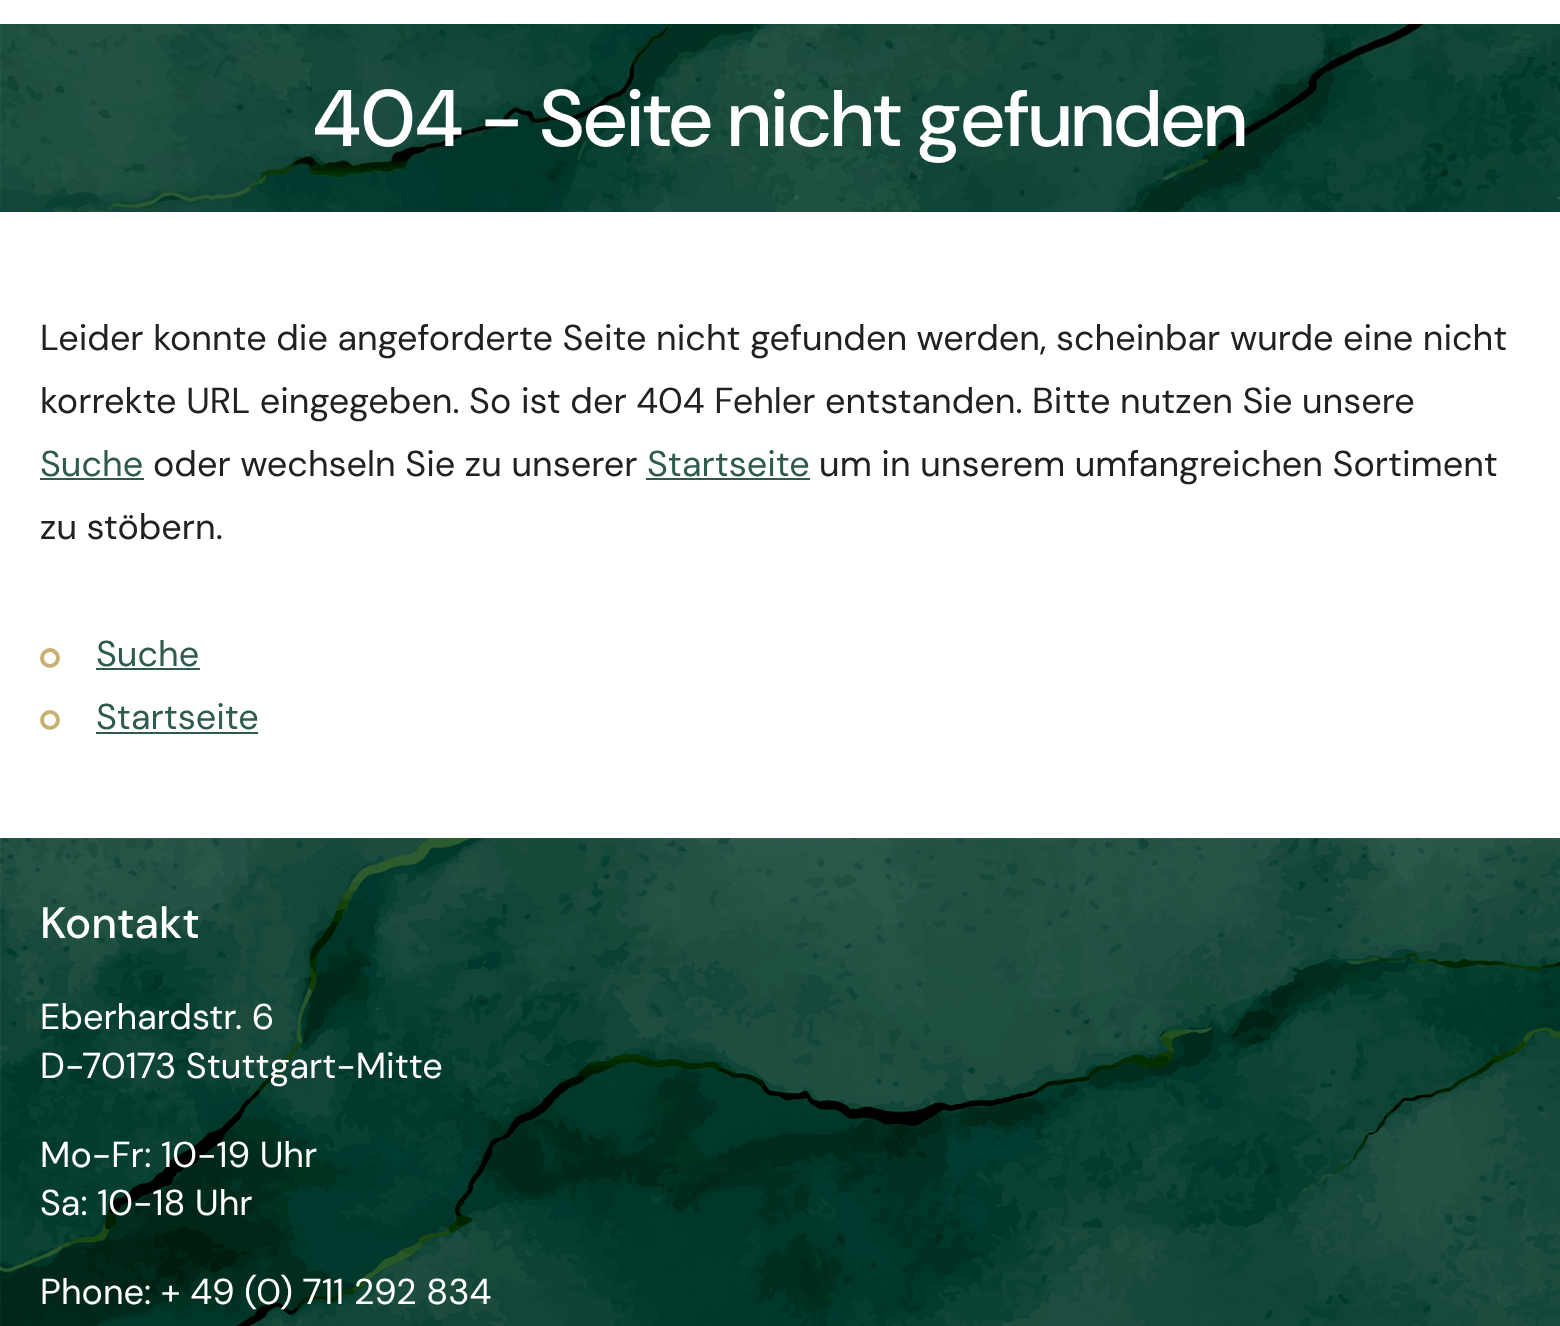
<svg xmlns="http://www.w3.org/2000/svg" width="1560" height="1326">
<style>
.a{font:500 80px DM Sans;fill:#fff}
.b{font:36px DM Sans;fill:#212121}
.c{font:36px DM Sans;fill:#2e5b4e}
.d{font:500 44px 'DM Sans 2';fill:#fff}
.e{font:36px DM Sans;fill:#fff}
</style>
<rect width="100%" height="100%" fill="#fff"/>
<image href="1.png" x="0" y="24" width="1560" height="188"/>
<path fill="#2e5b4e" d="M40 478h104v2H40z"/>
<path fill="#2e5b4e" d="M646 478h164v2H646z"/>
<circle fill="none" stroke="#c8b273" stroke-width="4" cx="50" cy="658" r="8"/>
<path fill="#2e5b4e" d="M96 668h104v2H96z"/>
<circle fill="none" stroke="#c8b273" stroke-width="4" cx="50" cy="720" r="8"/>
<path fill="#2e5b4e" d="M96 732h162v2H96z"/>
<image href="2.png" x="0" y="838" width="1560" height="488"/>
<text class="a" x="313" y="146">404 - Seite nicht gefunden</text>
<text class="b" x="40" y="350">Leider konnte die angeforderte Seite nicht gefunden werden, scheinbar wurde eine nicht</text>
<text class="b" x="40" y="413">korrekte URL eingegeben. So ist der 404 Fehler entstanden. Bitte nutzen Sie unsere</text>
<text class="c" x="40" y="476">Suche</text>
<text class="b" x="153" y="476">oder wechseln Sie zu unserer</text>
<text class="c" x="647" y="476">Startseite</text>
<text class="b" x="819" y="476">um in unserem umfangreichen Sortiment</text>
<text class="b" x="40" y="539">zu stöbern.</text>
<text class="c" x="96" y="666">Suche</text>
<text class="c" x="96" y="729">Startseite</text>
<text class="d" x="40" y="938">Kontakt</text>
<text class="e" x="40" y="1029">Eberhardstr. 6</text>
<text class="e" x="40" y="1078">D-70173 Stuttgart-Mitte</text>
<text class="e" x="40" y="1167">Mo-Fr: 10-19 Uhr</text>
<text class="e" x="40" y="1215">Sa: 10-18 Uhr</text>
<text class="e" x="40" y="1304">Phone: + 49 (0) 711 292 834</text>
</svg>
